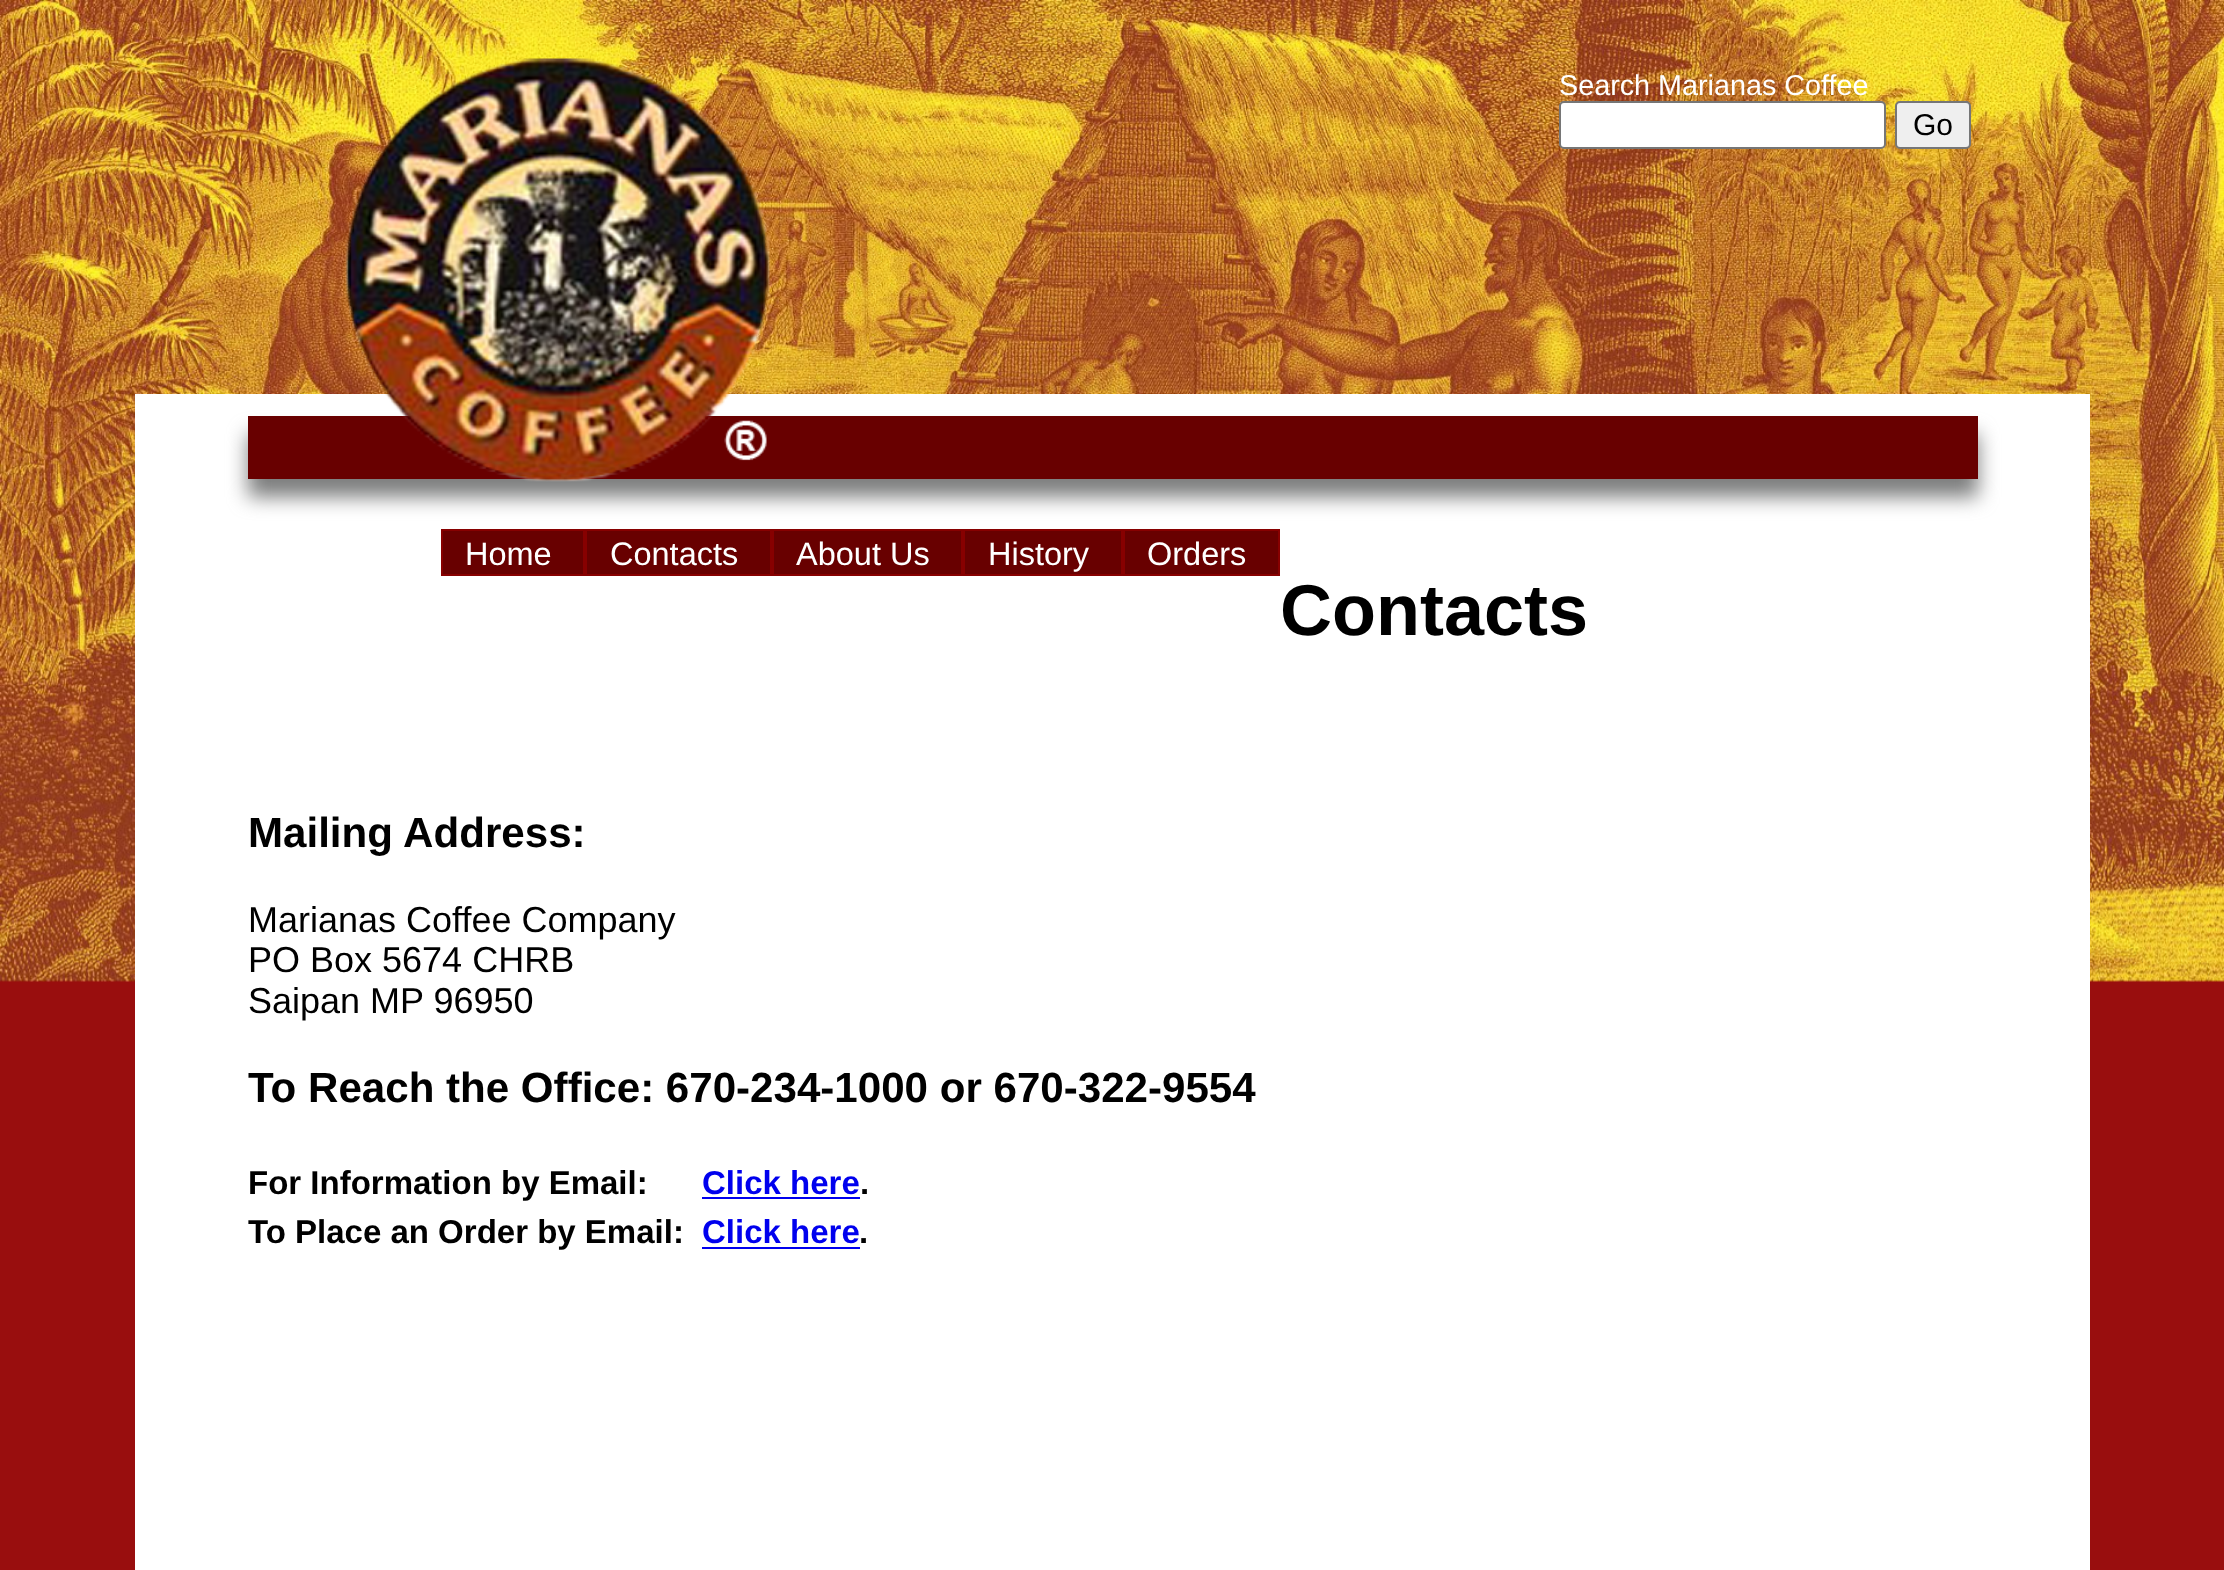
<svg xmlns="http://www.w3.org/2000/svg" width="2224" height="1570">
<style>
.a{font:28.75px Liberation Sans;fill:#fff}
.b{font:30px Liberation Sans;fill:#000}
.c{font:32.5px Liberation Sans;fill:#fff}
.d{font:bold 72px Liberation Sans;fill:#000}
.e{font:bold 42.1px Liberation Sans;fill:#000}
.f{font:36px Liberation Sans;fill:#000}
.g{font:bold 33px Liberation Sans;fill:#000}
.h{font:bold 33px Liberation Sans;fill:#00e}
</style>
<rect width="100%" height="100%" fill="#990e0e"/>
<image href="1.png" x="0" y="0" width="2224" height="982"/>
<path fill="#fff" d="M135 394h1955v1176H135z"/>
<path fill="#7c7d7d" filter="blur(10px)" d="M248 434h1730v63H248z"/>
<path fill="#680000" d="M248 416h1730v63H248z"/>
<image href="2.png" x="345" y="58" width="425" height="424"/>
<rect fill="#fff" stroke="#767676" stroke-width="2" x="1560" y="102" width="325" height="46" rx="4"/>
<rect fill="#efefef" stroke="#767676" stroke-width="2" x="1896" y="102" width="74" height="46" rx="4"/>
<path fill="#680000" stroke="#870000" stroke-width="2" d="M442 530h142v45H442z"/>
<path fill="#680000" stroke="#870000" stroke-width="2" d="M586 530h185v45H586z"/>
<path fill="#680000" stroke="#870000" stroke-width="2" d="M773 530h189v45H773z"/>
<path fill="#680000" stroke="#870000" stroke-width="2" d="M964 530h158v45H964z"/>
<path fill="#680000" stroke="#870000" stroke-width="2" d="M1124 530h155v45H1124z"/>
<path fill="#00e" d="M702 1197h158v2H702z"/>
<path fill="#00e" d="M702 1247h158v2H702z"/>
<text class="a" x="1559" y="95">Search Marianas Coffee</text>
<text class="b" x="1913" y="135">Go</text>
<text class="c" x="465" y="565">Home</text>
<text class="c" x="610" y="565">Contacts</text>
<text class="c" x="796" y="565">About Us</text>
<text class="c" x="988" y="565">History</text>
<text class="c" x="1147" y="565">Orders</text>
<text class="d" x="1280" y="635">Contacts</text>
<text class="e" x="248" y="847">Mailing Address:</text>
<text class="f" x="248" y="932">Marianas Coffee Company</text>
<text class="f" x="248" y="972">PO Box 5674 CHRB</text>
<text class="f" x="248" y="1013">Saipan MP 96950</text>
<text class="e" x="248" y="1102">To Reach the Office: 670-234-1000 or 670-322-9554</text>
<text class="g" x="248" y="1194">For Information by Email:</text>
<text class="h" x="702" y="1194">Click here</text>
<text class="g" x="860" y="1194">.</text>
<text class="g" x="248" y="1243">To Place an Order by Email:</text>
<text class="h" x="702" y="1243">Click here</text>
<text class="g" x="859" y="1243">.</text>
</svg>
